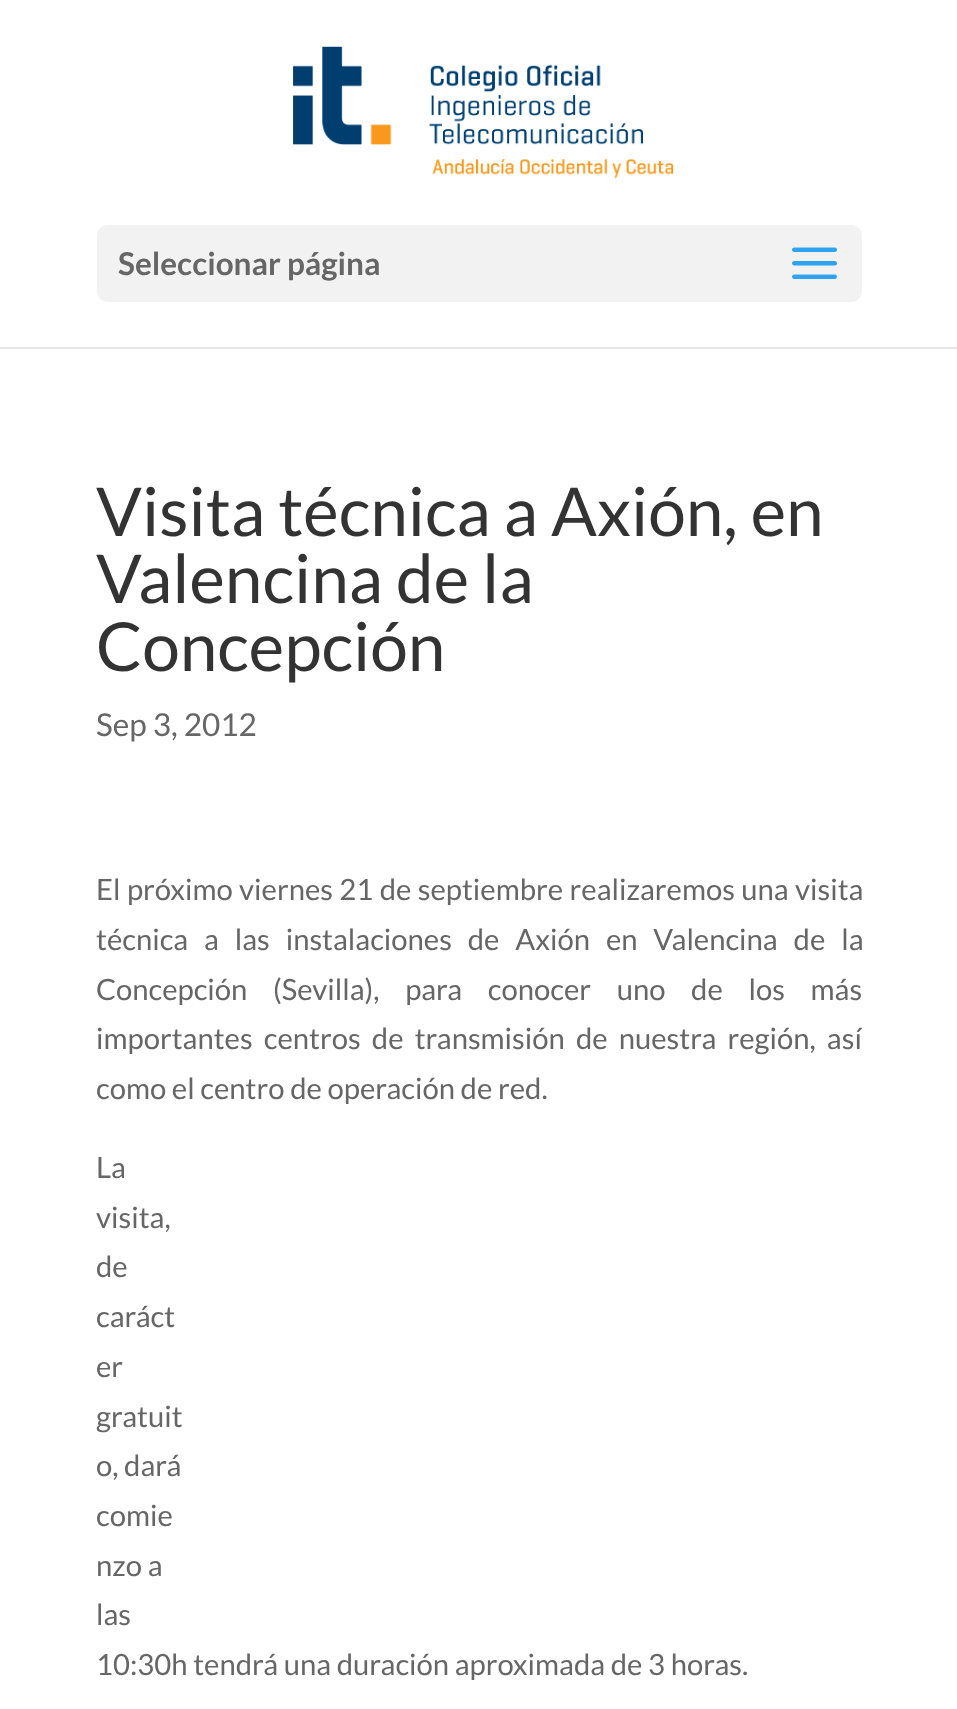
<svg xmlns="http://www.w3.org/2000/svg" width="957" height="1709">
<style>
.a{font:bold 31.5px Lato;fill:#666}
.b{font:67.5px Lato;fill:#333}
.c{font:31.5px Lato;fill:#666}
.d{font:29.25px Lato;fill:#666}
</style>
<rect width="100%" height="100%" fill="#fff"/>
<path fill="#e6e6e6" d="M0 346v3h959v-347h-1v344z"/>
<path fill="#fff" d="M0 346h957v1H0z"/>
<image href="1.png" x="293" y="46" width="381" height="133"/>
<rect fill="#f2f2f2" x="97" y="225" width="765" height="77" rx="11"/>
<image href="2.png" x="792" y="247" width="45" height="32"/>
<text class="a" x="118" y="275">Seleccionar página</text>
<text class="b" x="96" y="536">Visita técnica a Axión, en</text>
<text class="b" x="96" y="603">Valencina de la</text>
<text class="b" x="96" y="671">Concepción</text>
<text class="c" x="96" y="736">Sep 3, 2012</text>
<text class="d" x="96" y="900" word-spacing="0.75">El próximo viernes 21 de septiembre realizaremos una visita</text>
<text class="d" x="96" y="950" word-spacing="10.25">técnica a las instalaciones de Axión en Valencina de la</text>
<text class="d" x="96" y="1000" word-spacing="20">Concepción (Sevilla), para conocer uno de los más</text>
<text class="d" x="96" y="1049" word-spacing="5.5">importantes centros de transmisión de nuestra región, así</text>
<text class="d" x="96" y="1099">como el centro de operación de red.</text>
<text class="d" x="96" y="1178">La</text>
<text class="d" x="96" y="1228">visita,</text>
<text class="d" x="96" y="1277">de</text>
<text class="d" x="96" y="1327">caráct</text>
<text class="d" x="96" y="1377">er</text>
<text class="d" x="96" y="1427">gratuit</text>
<text class="d" x="96" y="1476">o, dará</text>
<text class="d" x="96" y="1526">comie</text>
<text class="d" x="96" y="1576">nzo a</text>
<text class="d" x="96" y="1625">las</text>
<text class="d" x="96" y="1675">10:30h tendrá una duración aproximada de 3 horas.</text>
</svg>
